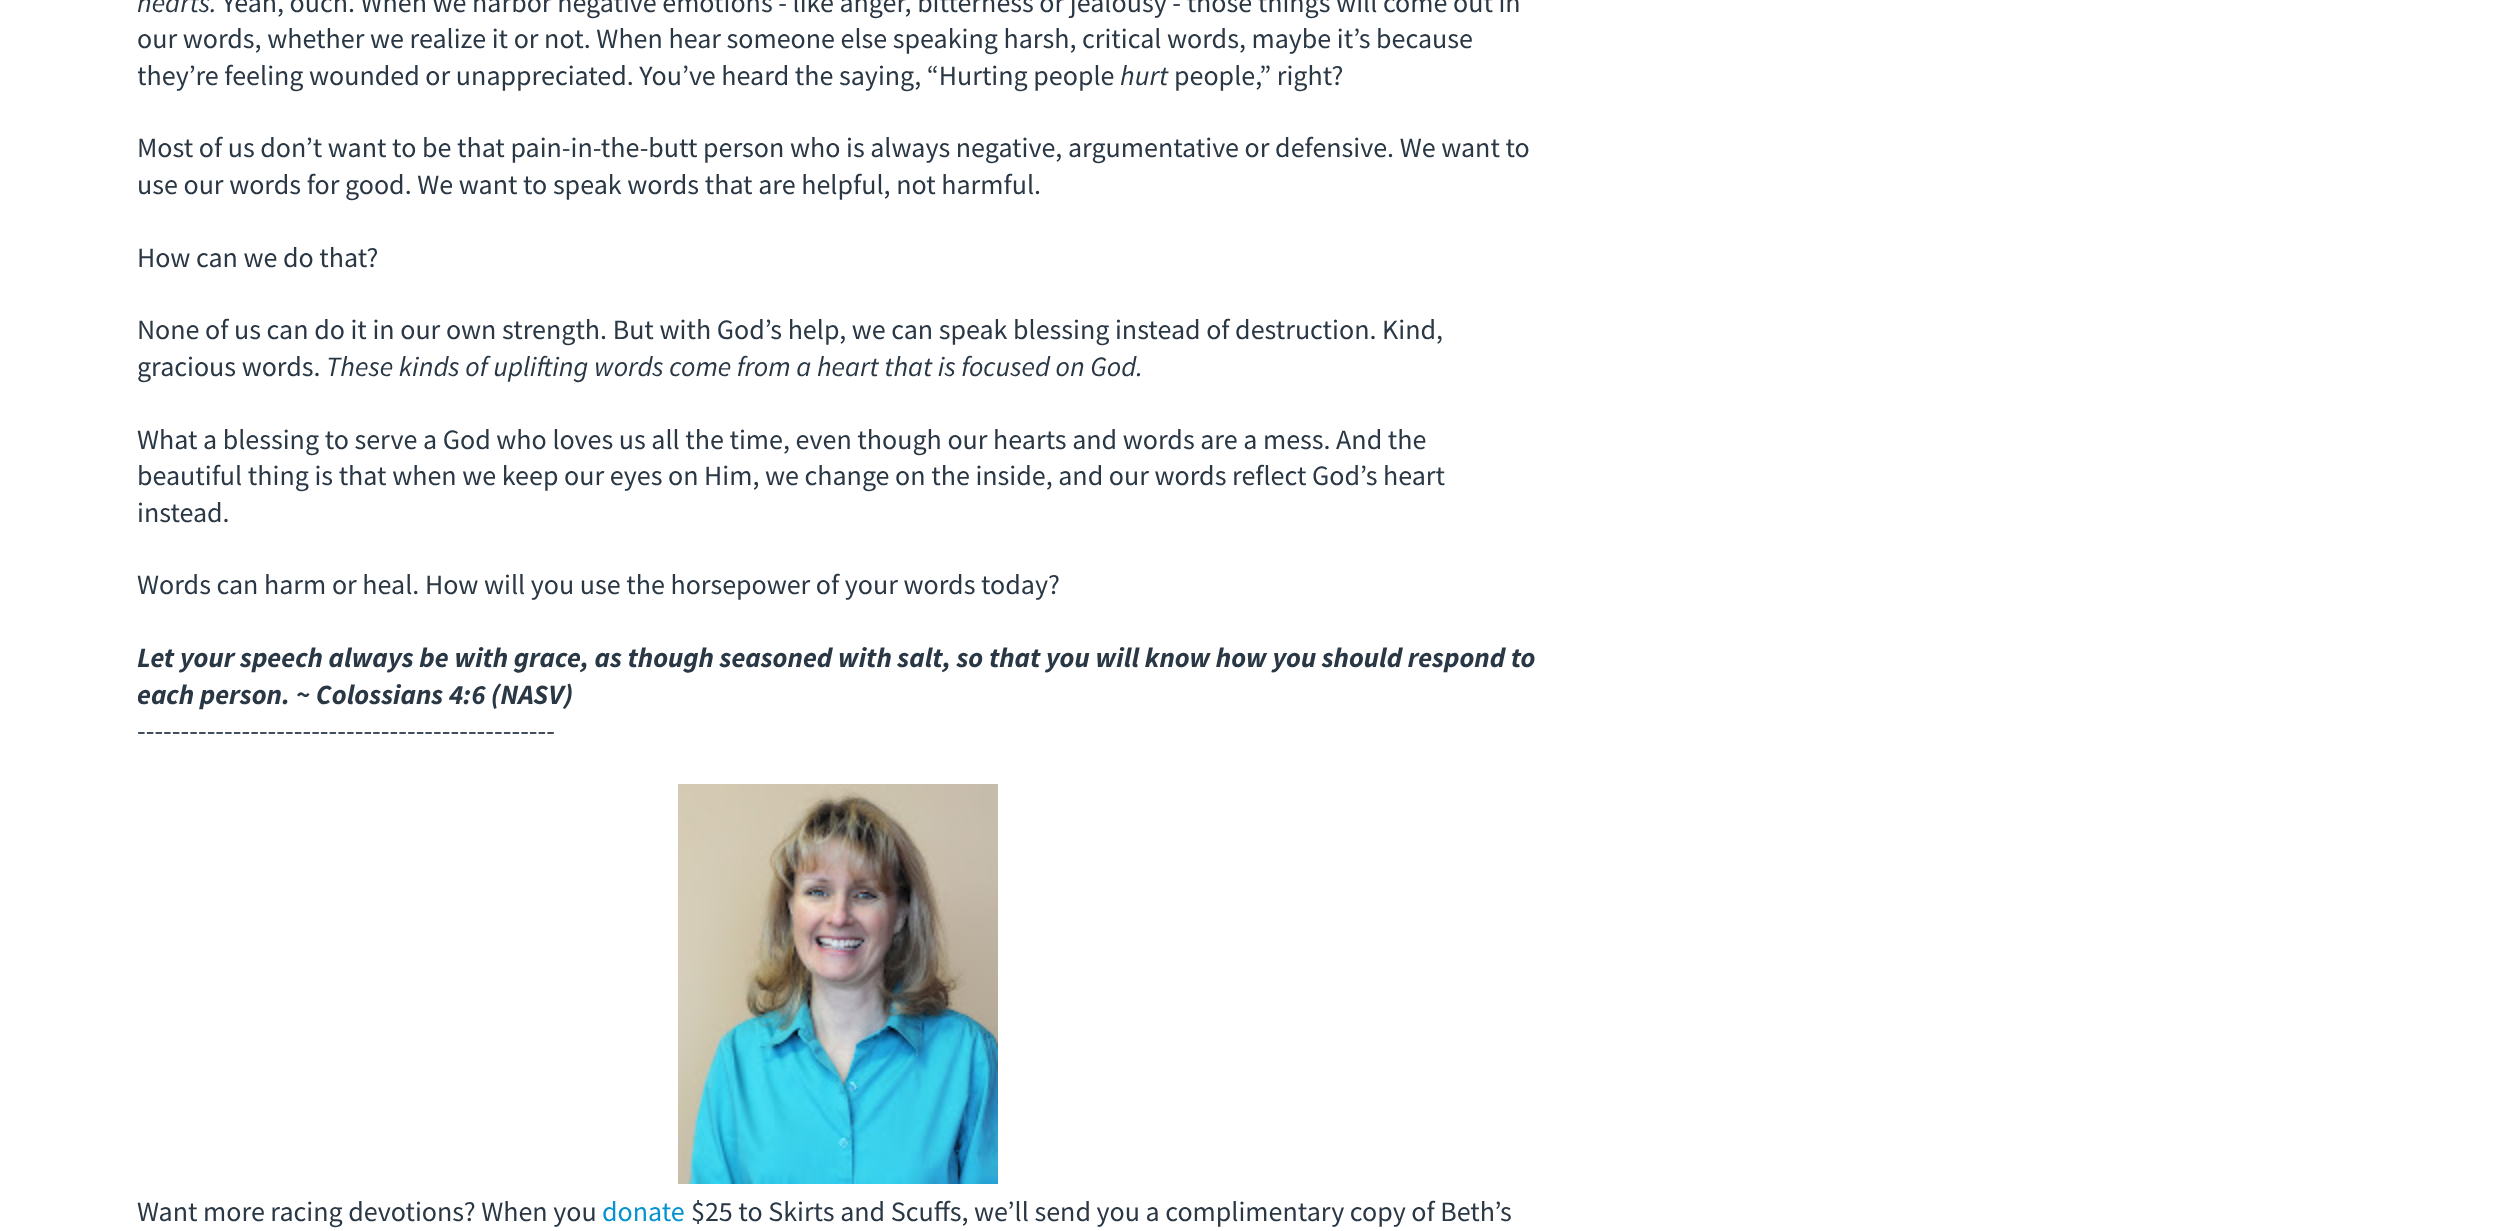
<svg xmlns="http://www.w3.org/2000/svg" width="2513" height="1231">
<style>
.a{font:italic 28px Source Sans Pro;fill:#2a3744}
.b{font:28px Source Sans Pro;fill:#2a3744}
.c{font:italic bold 28px Source Sans Pro;fill:#2a3744}
.d{font:28px Source Sans Pro;fill:#0592d0}
</style>
<defs>
<clipPath id="clip1"><path d="M138 0h1400v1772H138z"/></clipPath>
</defs>
<rect width="100%" height="100%" fill="#fff"/>
<image href="1.png" x="678" y="784" width="320" height="400"/>
<text class="a" x="137" y="12">hearts.</text>
<text class="b" x="222" y="12">Yeah, ouch. When we harbor negative emotions - like anger, bitterness or jealousy - those things will come out in</text>
<text class="b" x="137" y="48">our words, whether we realize it or not. When hear someone else speaking harsh, critical words, maybe it’s because</text>
<g clip-path="url(#clip1)">
<text class="b" x="137" y="85">they’re feeling wounded or unappreciated. You’ve heard the saying, “Hurting people</text>
</g>
<text class="a" x="1120" y="85">hurt</text>
<text class="b" x="1174" y="85">people,” right?</text>
<text class="b" x="137" y="157">Most of us don’t want to be that pain-in-the-butt person who is always negative, argumentative or defensive. We want to</text>
<text class="b" x="137" y="194">use our words for good. We want to speak words that are helpful, not harmful.</text>
<text class="b" x="137" y="267">How can we do that?</text>
<text class="b" x="137" y="339">None of us can do it in our own strength. But with God’s help, we can speak blessing instead of destruction. Kind,</text>
<text class="b" x="137" y="376">gracious words.</text>
<text class="a" x="326" y="376">These kinds of uplifting words come from a heart that is focused on God.</text>
<text class="b" x="137" y="449">What a blessing to serve a God who loves us all the time, even though our hearts and words are a mess. And the</text>
<text class="b" x="137" y="485">beautiful thing is that when we keep our eyes on Him, we change on the inside, and our words reflect God’s heart</text>
<text class="b" x="137" y="522">instead.</text>
<text class="b" x="137" y="594">Words can harm or heal. How will you use the horsepower of your words today?</text>
<text class="c" x="137" y="667">Let your speech always be with grace, as though seasoned with salt, so that you will know how you should respond to</text>
<g clip-path="url(#clip1)">
<text class="c" x="137" y="704">each person.</text>
</g>
<text class="c" x="296" y="704">~ Colossians 4:6 (NASV)</text>
<text class="b" x="137" y="740">------------------------------------------------</text>
<text class="b" x="137" y="1221">Want more racing devotions? When you</text>
<text class="d" x="602" y="1221">donate</text>
<text class="b" x="691" y="1221">$25 to Skirts and Scuffs, we’ll send you a complimentary copy of Beth’s</text>
</svg>
